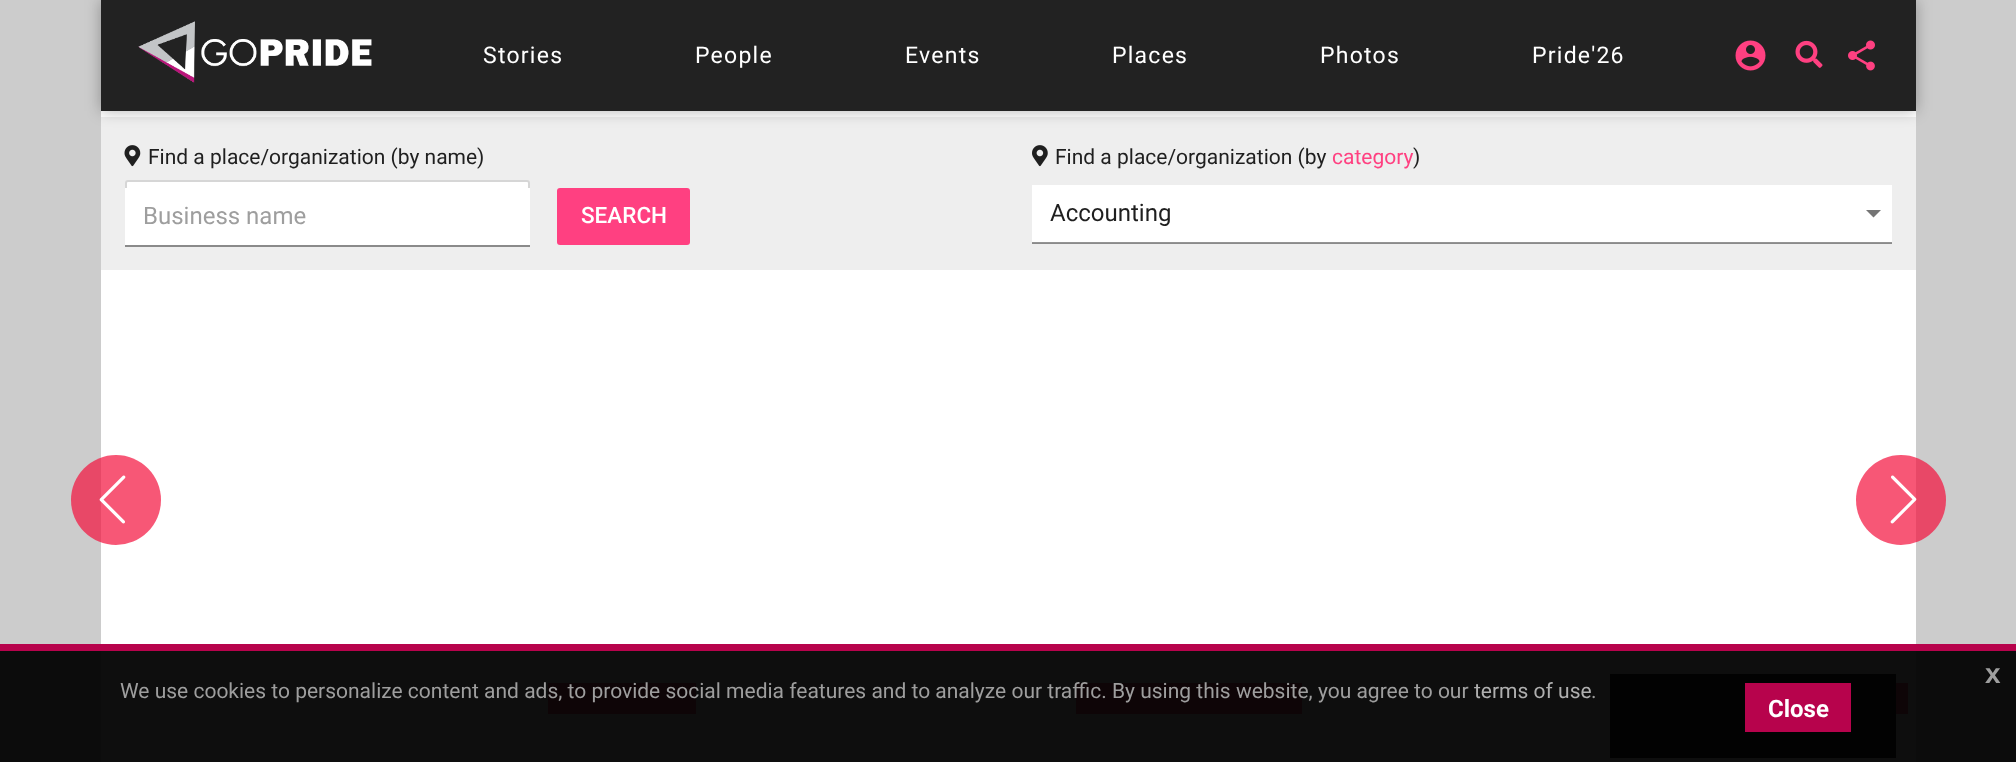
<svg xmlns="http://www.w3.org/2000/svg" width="2016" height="762">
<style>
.a{font:23px Roboto;letter-spacing:1.25px;fill:#fff}
.b{font:21px Roboto;fill:#1f1f1f}
.c{font:24px Roboto;fill:#9e9e9e}
.d{font:500 22.5px Roboto;fill:#fff}
.e{font:21px Roboto;fill:#ff4081}
.f{font:24px Roboto;fill:#1f1f1f}
.g{font:bold 28px Liberation Sans;fill:#9e9e9e}
.h{font:21px Roboto;fill:#9e9e9e}
.i{font:21px Roboto;fill:#afafaf}
.j{font:bold 24px Roboto;fill:#fff}
</style>
<rect width="100%" height="100%" fill="#ccc"/>
<path fill="#bcbcbc" d="M0 651h2016v111H0z"/>
<path fill="#fff" d="M101 111h1815v533H101z"/>
<path fill="#eee" d="M101 117h1815v153H101z"/>
<path fill="#0000004d" filter="blur(7.5px)" d="M101 0h1815v111H101z"/>
<path fill="#222" d="M101 0h1815v111H101z"/>
<image href="1.png" x="138" y="21" width="234" height="62"/>
<image href="2.png" x="1735" y="40" width="31" height="31"/>
<image href="3.png" x="1795" y="40" width="28" height="28"/>
<image href="4.png" x="1848" y="40" width="27" height="31"/>
<path fill="#eaeaea" d="M101 651h1815v111H101z"/>
<path fill="#8a8a8a" d="M1032 243h860v1H1032z"/>
<image href="5.png" x="124" y="145" width="17" height="22"/>
<rect fill="#fff" x="125" y="180" width="405" height="54" rx="3"/>
<rect fill="none" stroke="#7676764d" stroke-width="2" x="126" y="181" width="403" height="52" rx="2"/>
<path fill="#fff" d="M125 188h405v57H125z"/>
<path fill="#8a8a8a" d="M125 245h405v2H125z"/>
<rect fill="#ff4081" x="557" y="188" width="133" height="57" rx="3"/>
<image href="6.png" x="1032" y="145" width="16" height="22"/>
<path fill="#fff" d="M1032 185h860v57H1032z"/>
<path fill="#949494" d="M1032 242h860v1H1032z"/>
<path fill="#757575" d="M1866 210l7.5 7.5l7.5-7.5z"/>
<circle fill="#f3103cb3" cx="116" cy="500" r="45"/>
<image href="7.png" x="99" y="475" width="27" height="49"/>
<circle fill="#f3103cb3" cx="1901" cy="500" r="45"/>
<image href="8.png" x="1890" y="475" width="27" height="49"/>
<path fill="#e23e60" d="M548 683h148v31H548z"/>
<path fill="#e23e60" d="M1076 683h226v31H1076z"/>
<path fill="#e23e60" d="M1644 683h264v31H1644z"/>
<path fill="#020202f2" d="M0 651h2016v23H0z"/>
<path fill="#b7034c" d="M0 644h2016v7H0z"/>
<path fill="#020202f2" d="M0 674h2016v88H0z"/>
<path fill="#020202f2" d="M1610 674h286v84H1610z"/>
<path fill="#b7034c" d="M1745 683h106v49H1745z"/>
<text class="a" x="483" y="63">Stories</text>
<text class="a" x="695" y="63">People</text>
<text class="a" x="905" y="63">Events</text>
<text class="a" x="1112" y="63">Places</text>
<text class="a" x="1320" y="63">Photos</text>
<text class="a" x="1532" y="63">Pride'26</text>
<text class="b" x="148" y="164">Find a place/organization (by name)</text>
<text class="c" x="143" y="224">Business name</text>
<text class="d" x="581" y="223">SEARCH</text>
<text class="b" x="1055" y="164">Find a place/organization (by</text>
<text class="e" x="1332" y="164">category</text>
<text class="b" x="1413" y="164">)</text>
<text class="f" x="1050" y="221">Accounting</text>
<text class="g" x="1985" y="683">x</text>
<text class="h" x="120" y="698">We use cookies to personalize content and ads, to provide social media features and to analyze our traffic. By using this website, you agree to our</text>
<text class="i" x="1474" y="698">terms of use</text>
<text class="h" x="1591" y="698">.</text>
<text class="j" x="1768" y="717">Close</text>
</svg>
